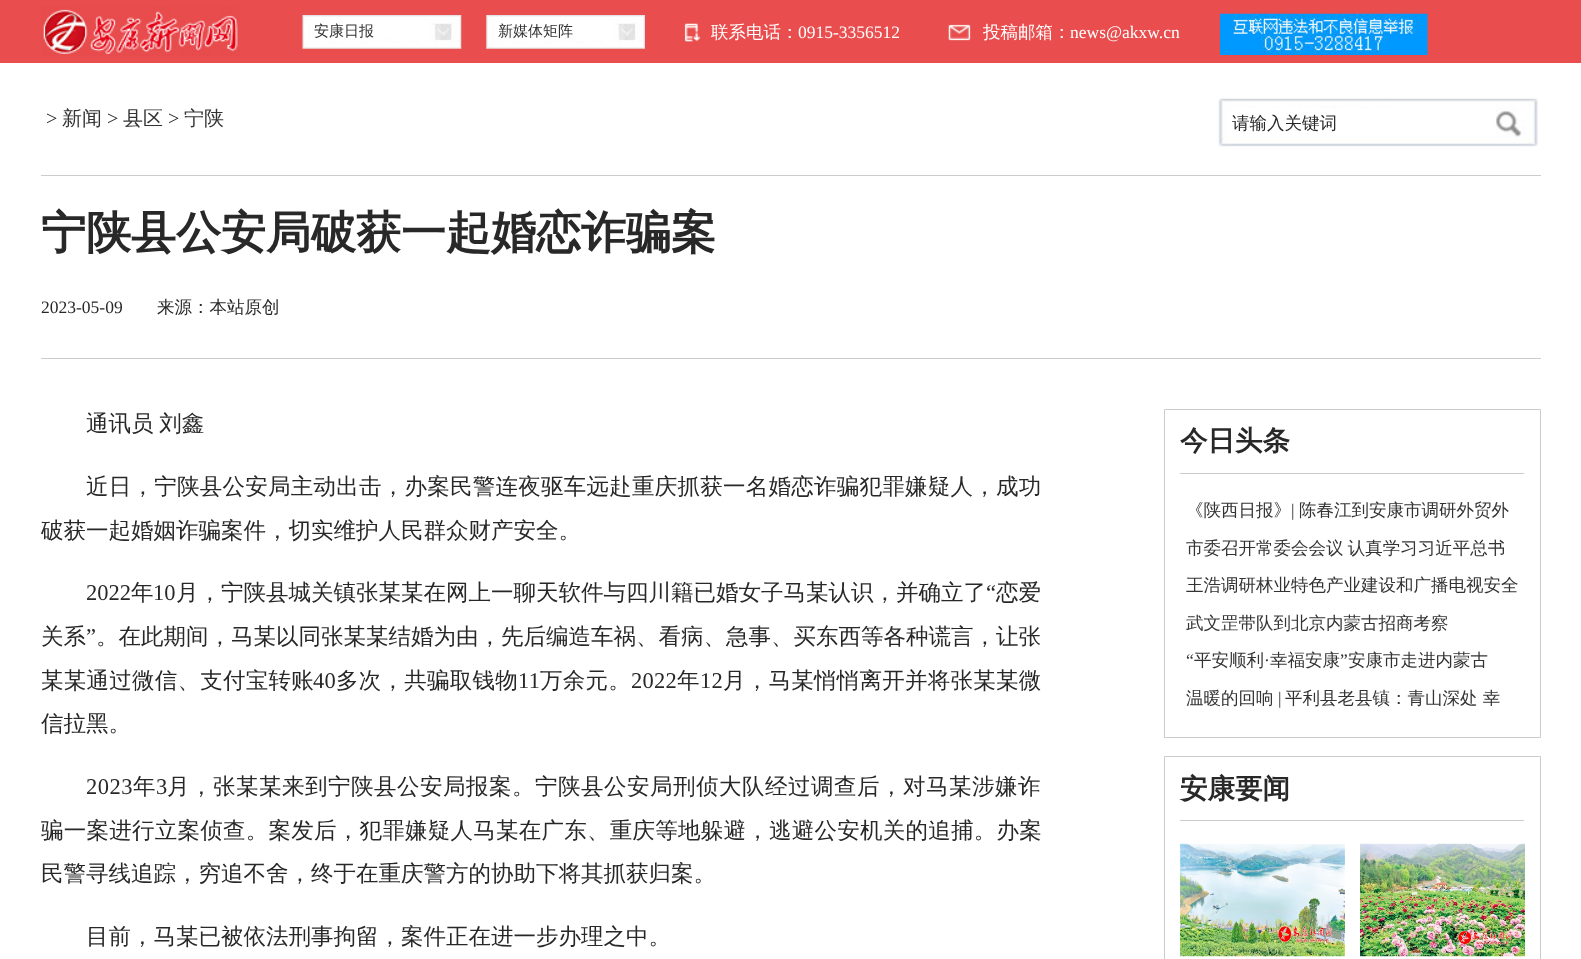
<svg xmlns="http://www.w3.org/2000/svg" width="1581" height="959">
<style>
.a{font:500 15px WenQuanYi Zen Hei;fill:#333}
.b{font:500 17.5px WenQuanYi Zen Hei;fill:#fff}
.c{font:17.5px Liberation Serif;fill:#fff}
.d{font:20px Liberation Serif;fill:#282828}
.e{font:500 20px WenQuanYi Zen Hei;fill:#333}
.f{font:500 17.5px WenQuanYi Zen Hei;fill:#282828}
.g{font:bold 45px WenQuanYi Zen Hei;fill:#282828}
.h{font:17.5px Liberation Serif;fill:#282828}
.i{font:500 22.5px WenQuanYi Zen Hei;fill:#282828}
.j{font:500 22.5px WenQuanYi Zen Hei;letter-spacing:0.25px;fill:#282828}
.k{font:22.5px Liberation Serif;fill:#282828}
.l{font:22.5px Liberation Serif;letter-spacing:0.25px;fill:#282828}
.m{font:22.5px Liberation Serif;letter-spacing:0.5px;fill:#282828}
.n{font:500 22.5px WenQuanYi Zen Hei;letter-spacing:0.5px;fill:#282828}
.o{font:bold 27.5px WenQuanYi Zen Hei;fill:#282828}
.p{font:500 17.5px WenQuanYi Zen Hei;fill:#333}
.q{font:17.5px Liberation Serif;fill:#333}
</style>
<rect width="100%" height="100%" fill="#fff"/>
<path fill="#e94d4d" d="M0 0h1581v63H0z"/>
<image href="1.png" x="41" y="6" width="199" height="50"/>
<image href="2.png" x="302" y="15" width="160" height="34"/>
<image href="3.png" x="486" y="15" width="159" height="34"/>
<image href="4.png" x="684" y="23" width="17" height="19"/>
<image href="5.png" x="948" y="24" width="23" height="17"/>
<image href="6.png" x="1220" y="13" width="208" height="42"/>
<image href="7.png" x="1218" y="98" width="320" height="49"/>
<path fill="#ccc" d="M41 175h1500v1H41z"/>
<path fill="#ccc" d="M41 358h1500v1H41z"/>
<path fill="none" stroke="#ccc" d="M1164.5 409.5h376v328H1164.5z"/>
<path fill="#ccc" d="M1180 473h344v1H1180z"/>
<path fill="none" stroke="#ccc" d="M1164.5 756.5h376v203H1164.5z"/>
<path fill="#ccc" d="M1180 820h344v1H1180z"/>
<image href="8.png" x="1180" y="843" width="165" height="114"/>
<image href="9.png" x="1360" y="843" width="165" height="114"/>
<text class="a" x="314" y="36">安康日报</text>
<text class="a" x="498" y="36">新媒体矩阵</text>
<text class="b" x="711" y="38">联系电话：</text>
<text class="c" x="798" y="38">0915-3356512</text>
<text class="b" x="983" y="38">投稿邮箱：</text>
<text class="c" x="1070" y="38">news@akxw.cn</text>
<text class="d" x="46" y="125">&gt;</text>
<text class="e" x="62" y="125">新闻</text>
<text class="d" x="107" y="125">&gt;</text>
<text class="e" x="123" y="125">县区</text>
<text class="d" x="168" y="125">&gt;</text>
<text class="e" x="184" y="125">宁陕</text>
<text class="f" x="1232" y="129">请输入关键词</text>
<text class="g" x="41" y="248">宁陕县公安局破获一起婚恋诈骗案</text>
<text class="h" x="41" y="313">2023-05-09</text>
<text class="f" x="157" y="313">来源：本站原创</text>
<text class="i" x="86" y="431" word-spacing="-1">通讯员 刘鑫</text>
<text class="j" x="86" y="494">近日，宁陕县公安局主动出击，办案民警连夜驱车远赴重庆抓获一名婚恋诈骗犯罪嫌疑人，成功</text>
<text class="i" x="41" y="538">破获一起婚姻诈骗案件，切实维护人民群众财产安全。</text>
<text class="k" x="86" y="600">2022</text>
<text class="i" x="131" y="600">年</text>
<text class="k" x="153" y="600">10</text>
<text class="i" x="176" y="600">月，宁陕县城关镇张某某在网上一聊天软件与四川籍已婚女子马某认识，并确立了</text>
<text class="k" x="986" y="600">“</text>
<text class="i" x="996" y="600">恋爱</text>
<text class="i" x="41" y="644">关系</text>
<text class="k" x="86" y="644">”</text>
<text class="i" x="96" y="644">。在此期间，马某以同张某某结婚为由，先后编造车祸、看病、急事、买东西等各种谎言，让张</text>
<text class="j" x="41" y="688">某某通过微信、支付宝转账</text>
<text class="l" x="313" y="688">40</text>
<text class="j" x="336" y="688">多次，共骗取钱物</text>
<text class="l" x="518" y="688">11</text>
<text class="j" x="540" y="688">万余元。</text>
<text class="l" x="631" y="688">2022</text>
<text class="j" x="677" y="688">年</text>
<text class="l" x="700" y="688">12</text>
<text class="j" x="723" y="688">月，马某悄悄离开并将张某某微</text>
<text class="i" x="41" y="731">信拉黑。</text>
<text class="m" x="86" y="794">2023</text>
<text class="n" x="133" y="794">年</text>
<text class="m" x="156" y="794">3</text>
<text class="n" x="167" y="794">月，张某某来到宁陕县公安局报案。宁陕县公安局刑侦大队经过调查后，对马某涉嫌诈</text>
<text class="j" x="41" y="838">骗一案进行立案侦查。案发后，犯罪嫌疑人马某在广东、重庆等地躲避，逃避公安机关的追捕。办案</text>
<text class="i" x="41" y="881">民警寻线追踪，穷追不舍，终于在重庆警方的协助下将其抓获归案。</text>
<text class="i" x="86" y="944">目前，马某已被依法刑事拘留，案件正在进一步办理之中。</text>
<text class="o" x="1180" y="450">今日头条</text>
<text class="p" x="1186" y="516">《陕西日报》</text>
<text class="q" x="1291" y="516">|</text>
<text class="p" x="1299" y="516">陈春江到安康市调研外贸外</text>
<text class="p" x="1186" y="554" word-spacing="-1">市委召开常委会会议 认真学习习近平总书</text>
<text class="p" x="1186" y="591">王浩调研林业特色产业建设和广播电视安全</text>
<text class="p" x="1186" y="629">武文罡带队到北京内蒙古招商考察</text>
<text class="q" x="1186" y="666">“</text>
<text class="p" x="1194" y="666">平安顺利</text>
<text class="p" x="1270" y="666">幸福安康</text>
<text class="q" x="1340" y="666">”</text>
<text class="p" x="1348" y="666">安康市走进内蒙古</text>
<text class="q" x="1264" y="666">·</text>
<text class="p" x="1186" y="704">温暖的回响</text>
<text class="q" x="1278" y="704">|</text>
<text class="p" x="1285" y="704">平利县老县镇：青山深处 幸</text>
<text class="o" x="1180" y="798">安康要闻</text>
</svg>
